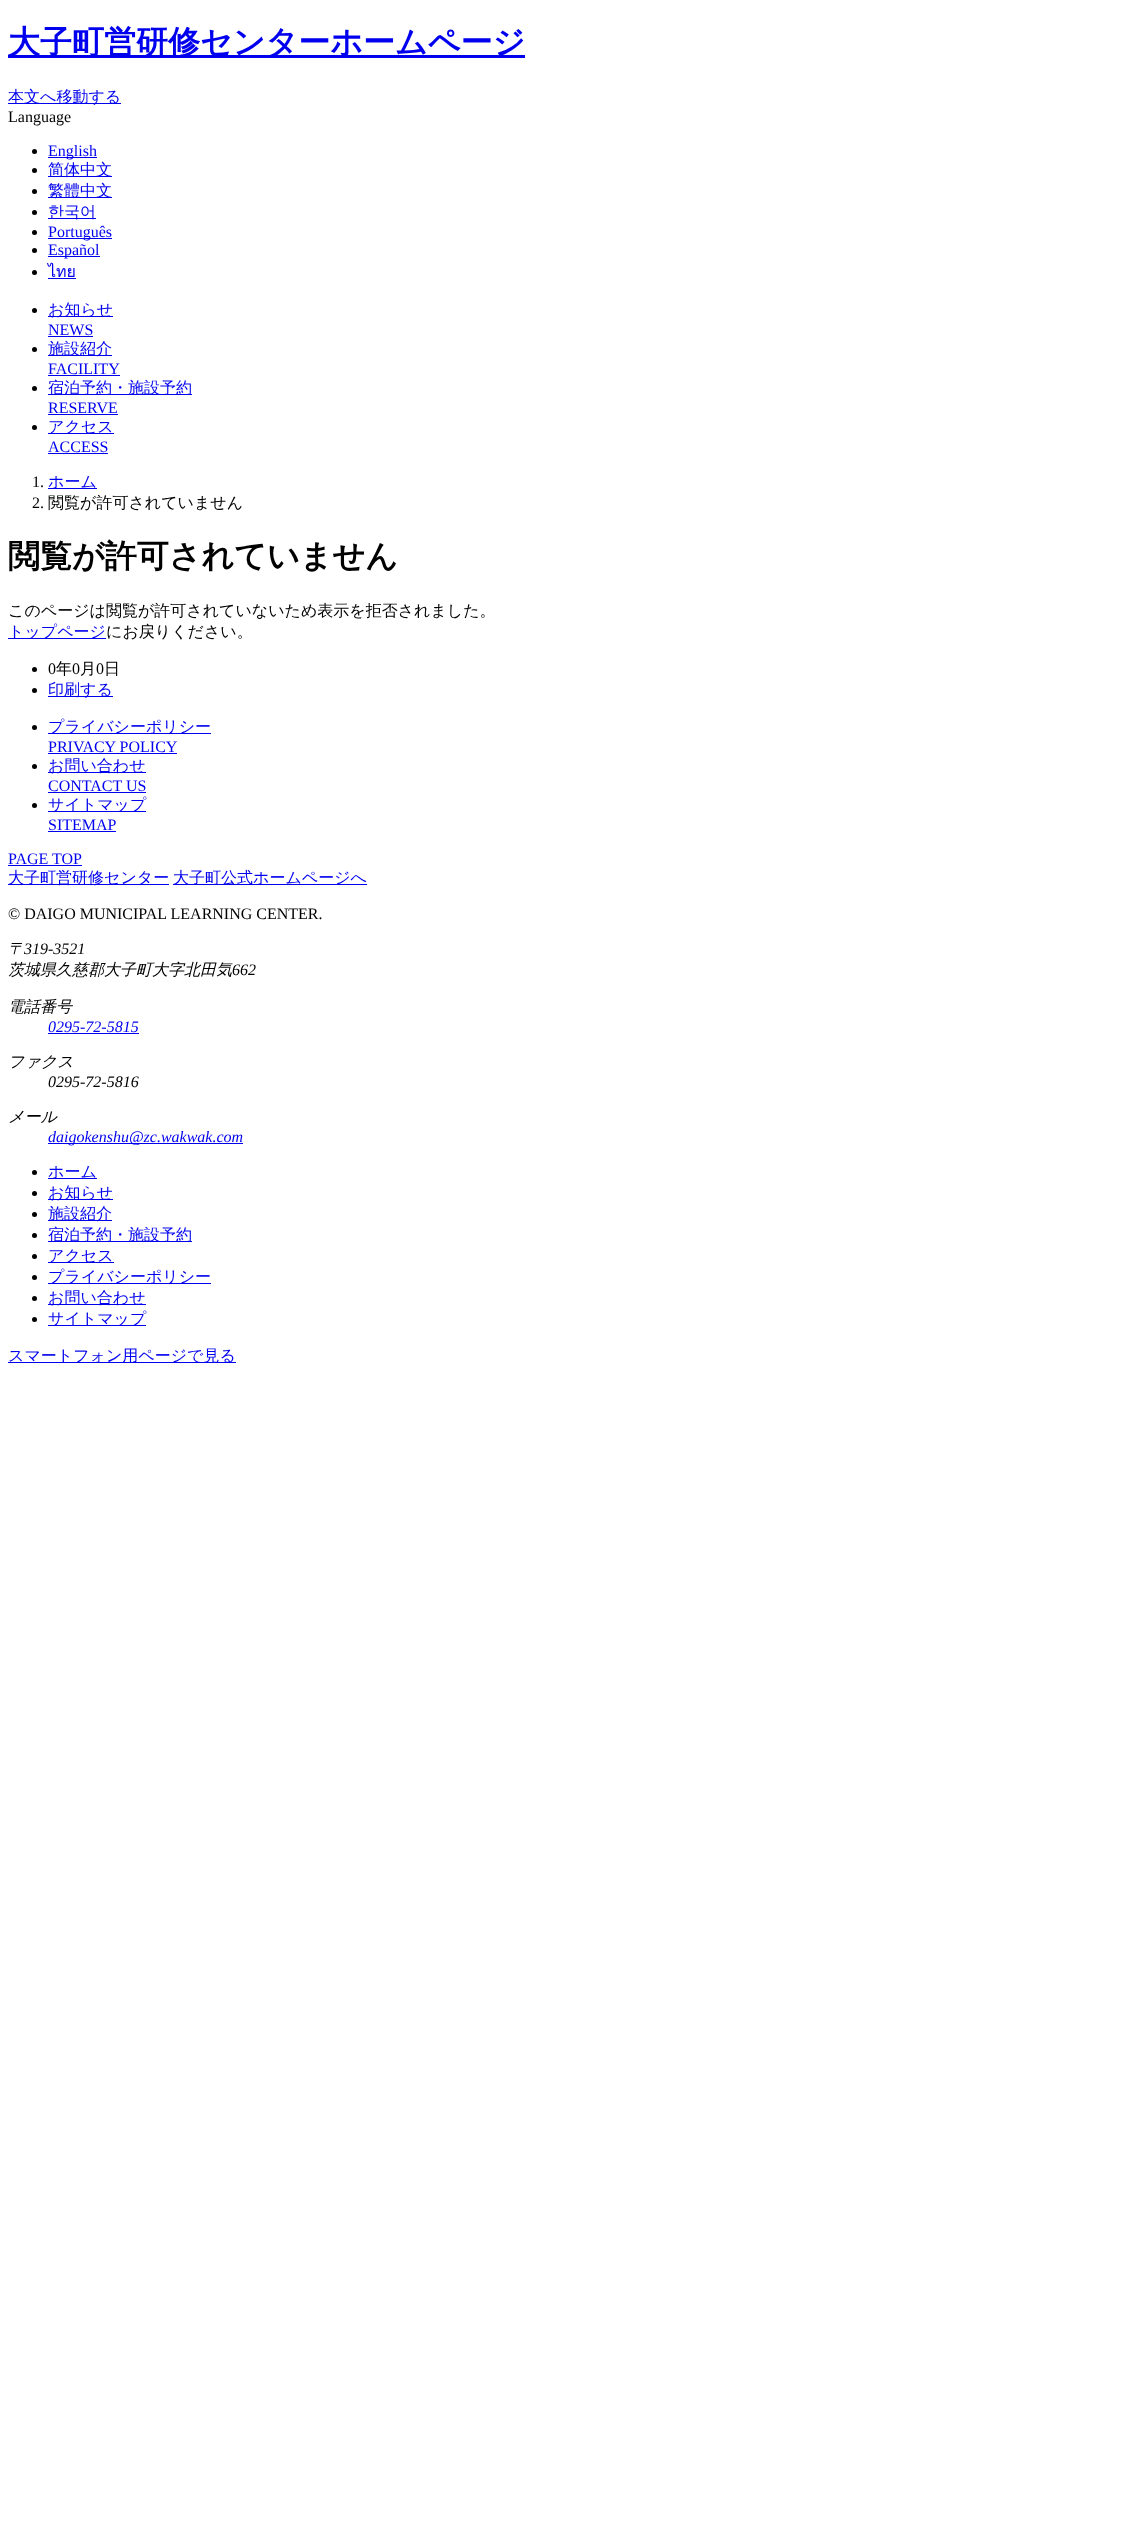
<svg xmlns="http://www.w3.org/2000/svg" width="1134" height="2527">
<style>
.a{font:bold 32px WenQuanYi Zen Hei;fill:#00e}
.b{font:500 16px WenQuanYi Zen Hei;fill:#00e}
.c{font:16px Liberation Serif;fill:#000}
.d{font:16px Liberation Serif;fill:#00e}
.e{font:16px Loma;fill:#00e}
.f{font:500 16px WenQuanYi Zen Hei;fill:#000}
.g{font:bold 32px WenQuanYi Zen Hei;fill:#000}
.h{font:italic 500 16px WenQuanYi Zen Hei;fill:#000}
.i{font:italic 16px Liberation Serif;fill:#000}
.j{font:italic 16px Liberation Serif;fill:#00e}
</style>
<rect width="100%" height="100%" fill="#fff"/>
<path fill="#00e" d="M8 55h517v3H8z"/>
<path fill="#00e" d="M8 103h113v1H8z"/>
<circle fill="#000" cx="34.5" cy="151.5" r="2.5"/>
<path fill="#00e" d="M48 157h49v1H48z"/>
<circle fill="#000" cx="34.5" cy="170.5" r="2.5"/>
<path fill="#00e" d="M48 176h64v1H48z"/>
<circle fill="#000" cx="34.5" cy="191.5" r="2.5"/>
<path fill="#00e" d="M48 197h64v1H48z"/>
<circle fill="#000" cx="34.5" cy="212.5" r="2.5"/>
<path fill="#00e" d="M48 218h48v1H48z"/>
<circle fill="#000" cx="34.5" cy="232.5" r="2.5"/>
<path fill="#00e" d="M48 238h64v1H48z"/>
<circle fill="#000" cx="34.5" cy="250.5" r="2.5"/>
<path fill="#00e" d="M48 256h52v1H48z"/>
<circle fill="#000" cx="34.5" cy="272.5" r="2.5"/>
<path fill="#00e" d="M48 278h28v1H48z"/>
<circle fill="#000" cx="34.5" cy="310.5" r="2.5"/>
<path fill="#00e" d="M48 316h65v1H48z"/>
<path fill="#00e" d="M48 336h45v1H48z"/>
<circle fill="#000" cx="34.5" cy="349.5" r="2.5"/>
<path fill="#00e" d="M48 355h64v1H48z"/>
<path fill="#00e" d="M48 375h72v1H48z"/>
<circle fill="#000" cx="34.5" cy="388.5" r="2.5"/>
<path fill="#00e" d="M48 394h144v1H48z"/>
<path fill="#00e" d="M48 414h70v1H48z"/>
<circle fill="#000" cx="34.5" cy="427.5" r="2.5"/>
<path fill="#00e" d="M48 433h66v1H48z"/>
<path fill="#00e" d="M48 453h60v1H48z"/>
<path fill="#00e" d="M48 488h49v1H48z"/>
<path fill="#00e" d="M8 638h98v1H8z"/>
<circle fill="#000" cx="34.5" cy="669.5" r="2.5"/>
<circle fill="#000" cx="34.5" cy="690.5" r="2.5"/>
<path fill="#00e" d="M48 696h65v1H48z"/>
<circle fill="#000" cx="34.5" cy="727.5" r="2.5"/>
<path fill="#00e" d="M48 733h163v1H48z"/>
<path fill="#00e" d="M48 753h129v1H48z"/>
<circle fill="#000" cx="34.5" cy="766.5" r="2.5"/>
<path fill="#00e" d="M48 772h98v1H48z"/>
<path fill="#00e" d="M48 792h98v1H48z"/>
<circle fill="#000" cx="34.5" cy="805.5" r="2.5"/>
<path fill="#00e" d="M48 811h98v1H48z"/>
<path fill="#00e" d="M48 831h68v1H48z"/>
<path fill="#00e" d="M8 865h74v1H8z"/>
<path fill="#00e" d="M8 884h161v1H8z"/>
<path fill="#00e" d="M173 884h194v1H173z"/>
<path fill="#00e" d="M48 1033h91v1H48z"/>
<path fill="#00e" d="M48 1143h195v1H48z"/>
<circle fill="#000" cx="34.5" cy="1172.5" r="2.5"/>
<path fill="#00e" d="M48 1178h49v1H48z"/>
<circle fill="#000" cx="34.5" cy="1193.5" r="2.5"/>
<path fill="#00e" d="M48 1199h65v1H48z"/>
<circle fill="#000" cx="34.5" cy="1214.5" r="2.5"/>
<path fill="#00e" d="M48 1220h64v1H48z"/>
<circle fill="#000" cx="34.5" cy="1235.5" r="2.5"/>
<path fill="#00e" d="M48 1241h144v1H48z"/>
<circle fill="#000" cx="34.5" cy="1256.5" r="2.5"/>
<path fill="#00e" d="M48 1262h66v1H48z"/>
<circle fill="#000" cx="34.5" cy="1277.5" r="2.5"/>
<path fill="#00e" d="M48 1283h163v1H48z"/>
<circle fill="#000" cx="34.5" cy="1298.5" r="2.5"/>
<path fill="#00e" d="M48 1304h98v1H48z"/>
<circle fill="#000" cx="34.5" cy="1319.5" r="2.5"/>
<path fill="#00e" d="M48 1325h98v1H48z"/>
<path fill="#00e" d="M8 1362h228v1H8z"/>
<text class="a" x="8" y="53">大子町営研修センターホームページ</text>
<text class="b" x="8" y="102">本文へ移動する</text>
<text class="c" x="8" y="122">Language</text>
<text class="d" x="48" y="156">English</text>
<text class="b" x="48" y="175">简体中文</text>
<text class="b" x="48" y="196">繁體中文</text>
<text class="b" x="48" y="217">한국어</text>
<text class="d" x="48" y="237">Português</text>
<text class="d" x="48" y="255">Español</text>
<text class="e" x="48" y="277">ไทย</text>
<text class="b" x="48" y="315">お知らせ</text>
<text class="d" x="48" y="335">NEWS</text>
<text class="b" x="48" y="354">施設紹介</text>
<text class="d" x="48" y="374">FACILITY</text>
<text class="b" x="48" y="393">宿泊予約・施設予約</text>
<text class="d" x="48" y="413">RESERVE</text>
<text class="b" x="48" y="432">アクセス</text>
<text class="d" x="48" y="452">ACCESS</text>
<text class="c" x="32" y="487">1.</text>
<text class="b" x="48" y="487">ホーム</text>
<text class="c" x="32" y="508">2.</text>
<text class="f" x="48" y="508">閲覧が許可されていません</text>
<text class="g" x="8" y="567">閲覧が許可されていません</text>
<text class="f" x="8" y="616">このページは閲覧が許可されていないため表示を拒否されました。</text>
<text class="b" x="8" y="637">トップページ</text>
<text class="f" x="106" y="637">にお戻りください。</text>
<text class="c" x="48" y="674">0</text>
<text class="f" x="56" y="674">年</text>
<text class="c" x="72" y="674">0</text>
<text class="f" x="80" y="674">月</text>
<text class="c" x="96" y="674">0</text>
<text class="f" x="104" y="674">日</text>
<text class="b" x="48" y="695">印刷する</text>
<text class="b" x="48" y="732">プライバシーポリシー</text>
<text class="d" x="48" y="752">PRIVACY POLICY</text>
<text class="b" x="48" y="771">お問い合わせ</text>
<text class="d" x="48" y="791">CONTACT US</text>
<text class="b" x="48" y="810">サイトマップ</text>
<text class="d" x="48" y="830">SITEMAP</text>
<text class="d" x="8" y="864">PAGE TOP</text>
<text class="b" x="8" y="883">大子町営研修センター</text>
<text class="b" x="173" y="883">大子町公式ホームページへ</text>
<text class="c" x="8" y="919">© DAIGO MUNICIPAL LEARNING CENTER.</text>
<text class="h" x="8" y="954">〒</text>
<text class="i" x="24" y="954">319-3521</text>
<text class="h" x="8" y="975">茨城県久慈郡大子町大字北田気</text>
<text class="i" x="232" y="975">662</text>
<text class="h" x="8" y="1012">電話番号</text>
<text class="j" x="48" y="1032">0295-72-5815</text>
<text class="h" x="8" y="1067">ファクス</text>
<text class="i" x="48" y="1087">0295-72-5816</text>
<text class="h" x="8" y="1122">メール</text>
<text class="j" x="48" y="1142">daigokenshu@zc.wakwak.com</text>
<text class="b" x="48" y="1177">ホーム</text>
<text class="b" x="48" y="1198">お知らせ</text>
<text class="b" x="48" y="1219">施設紹介</text>
<text class="b" x="48" y="1240">宿泊予約・施設予約</text>
<text class="b" x="48" y="1261">アクセス</text>
<text class="b" x="48" y="1282">プライバシーポリシー</text>
<text class="b" x="48" y="1303">お問い合わせ</text>
<text class="b" x="48" y="1324">サイトマップ</text>
<text class="b" x="8" y="1361">スマートフォン用ページで見る</text>
</svg>
